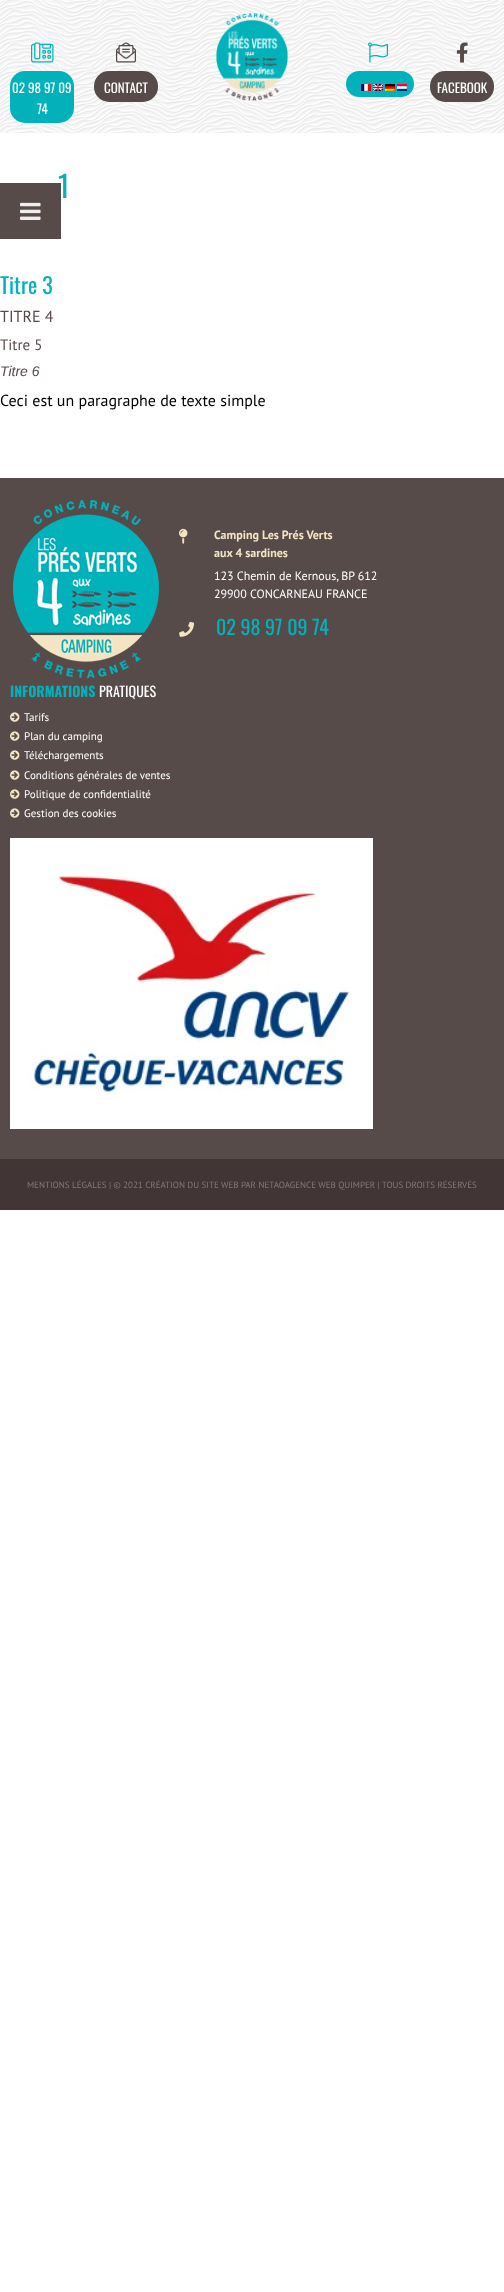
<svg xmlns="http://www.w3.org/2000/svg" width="504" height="2292">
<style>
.a{font:13px Oswald;fill:#fff}
.b{font:30px Oswald;fill:#01b2bb}
.c{font:22px Oswald;fill:#01b2bb}
.d{font:16px PT Sans;fill:#574b4a}
.e{font:15px PT Sans;fill:#574b4a}
.f{font:italic 14px Liberation Sans;fill:#574b4a}
.g{font:16px PT Sans;fill:#000}
.h{font:bold 12px PT Sans;fill:#f3e4c4}
.i{font:12px PT Sans;fill:#fff}
.j{font:20px Oswald;fill:#01b2bb}
.k{font:bold 14px Oswald;fill:#01b2bb}
.l{font:14px Oswald;fill:#fff}
.m{font:11px PT Sans;fill:#fff}
.n{font:9px PT Sans;fill:#867877}
</style>
<rect width="100%" height="100%" fill="#fff"/>
<image href="1.png" x="0" y="0" width="504" height="133"/>
<image href="2.png" x="31" y="42" width="23" height="21"/>
<rect fill="#01b2bb" x="10" y="71" width="64" height="52" rx="15"/>
<image href="3.png" x="116" y="42" width="20" height="21"/>
<rect fill="#574b4a" x="94" y="71" width="64" height="31" rx="15"/>
<image href="4.png" x="216" y="13" width="73" height="88"/>
<image href="5.png" x="368" y="42" width="21" height="21"/>
<rect fill="#01b2bb" x="346" y="71" width="68" height="26" rx="13"/>
<image href="6.png" x="361" y="84" width="10" height="7"/>
<image href="7.png" x="373" y="84" width="10" height="7"/>
<image href="8.png" x="385" y="84" width="10" height="7"/>
<image href="9.png" x="397" y="84" width="10" height="7"/>
<image href="10.png" x="456" y="42" width="12" height="21"/>
<rect fill="#574b4a" x="430" y="71" width="64" height="31" rx="15"/>
<path fill="#574b4a" d="M0 478h504v681H0z"/>
<image href="12.png" x="13" y="500" width="146" height="178"/>
<image href="13.png" x="179" y="528" width="9" height="16"/>
<image href="14.png" x="179" y="621" width="15" height="16"/>
<image href="15.png" x="10" y="712" width="10" height="10"/>
<image href="15.png" x="10" y="731" width="10" height="10"/>
<image href="15.png" x="10" y="750" width="10" height="10"/>
<image href="15.png" x="10" y="770" width="10" height="10"/>
<image href="15.png" x="10" y="789" width="10" height="10"/>
<image href="15.png" x="10" y="808" width="10" height="10"/>
<image href="16.png" x="10" y="838" width="363" height="291"/>
<path fill="#413635" d="M0 1159h504v51H0z"/>
<text class="a" x="12" y="93">02 98 97 09</text>
<text class="a" x="37" y="114">74</text>
<text class="a" x="104" y="93">CONTACT</text>
<text class="a" x="437" y="93">FACEBOOK</text>
<text class="b" x="58" y="198">1</text>
<text class="c" x="0" y="294">Titre 3</text>
<text class="d" x="0" y="322">TITRE 4</text>
<text class="e" x="0" y="350">Titre 5</text>
<text class="f" x="0" y="376">Titre 6</text>
<text class="g" x="0" y="406">Ceci est un paragraphe de texte simple</text>
<path fill="#574b4a" d="M0 183h61v56H0z"/>
<image href="11.png" x="20" y="202" width="21" height="18"/>
<text class="h" x="214" y="539">Camping Les Prés Verts</text>
<text class="h" x="214" y="557">aux 4 sardines</text>
<text class="i" x="214" y="580">123 Chemin de Kernous, BP 612</text>
<text class="i" x="214" y="598">29900 CONCARNEAU FRANCE</text>
<text class="j" x="216" y="635">02 98 97 09 74</text>
<text class="k" x="10" y="697">INFORMATIONS</text>
<text class="l" x="99" y="697">PRATIQUES</text>
<text class="m" x="24" y="721">Tarifs</text>
<text class="m" x="24" y="740">Plan du camping</text>
<text class="m" x="24" y="759">Téléchargements</text>
<text class="m" x="24" y="779">Conditions générales de ventes</text>
<text class="m" x="24" y="798">Politique de confidentialité</text>
<text class="m" x="24" y="817">Gestion des cookies</text>
<text class="n" x="27" y="1188">MENTIONS LÉGALES | © 2021 CRÉATION DU SITE WEB PAR NETAOAGENCE WEB QUIMPER | TOUS DROITS RÉSERVÉS</text>
</svg>
